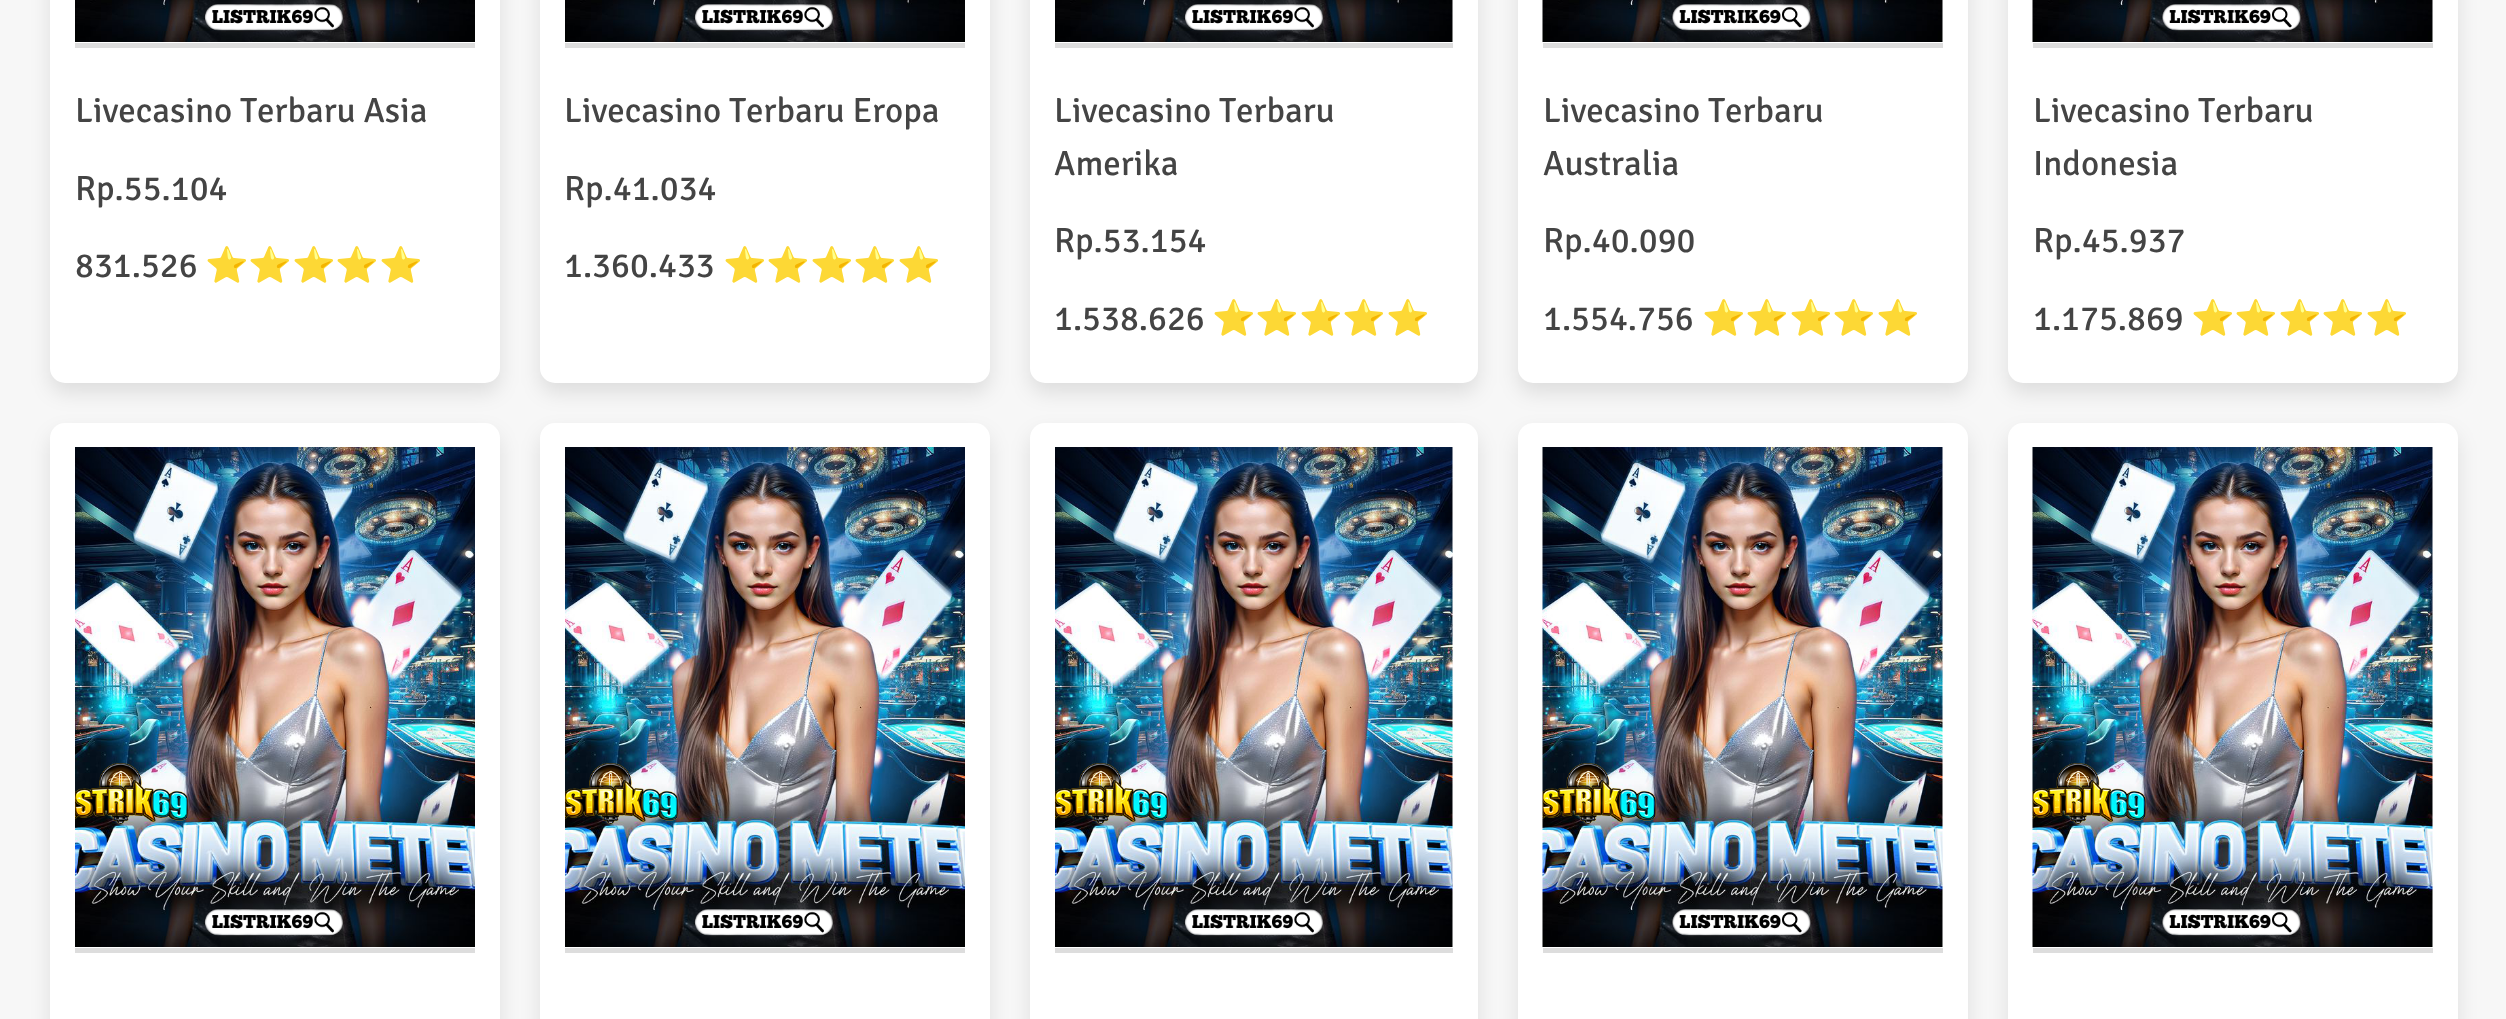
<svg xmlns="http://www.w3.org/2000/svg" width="2506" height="1019">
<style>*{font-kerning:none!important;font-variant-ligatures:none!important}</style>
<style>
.a{font:35px Signika;fill:#444}
.b{font:35px Noto Color Emoji;fill:#444}
</style>
<rect width="100%" height="100%" fill="#f7f7f7"/>
<rect fill="#0000001a" filter="blur(10px)" x="50" y="-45" width="450" height="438" rx="15"/>
<rect fill="#fff" x="50" y="-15" width="450" height="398" rx="15"/>
<image href="1.png" x="75" y="0" width="400" height="42"/>
<path fill="#ddd" d="M75 43h400v5H75z"/>
<rect fill="#0000001a" filter="blur(10px)" x="540" y="-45" width="450" height="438" rx="15"/>
<rect fill="#fff" x="540" y="-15" width="450" height="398" rx="15"/>
<image href="2.png" x="565" y="0" width="400" height="42"/>
<path fill="#ddd" d="M565 43h400v5H565z"/>
<rect fill="#0000001a" filter="blur(10px)" x="1030" y="-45" width="448" height="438" rx="15"/>
<rect fill="#fff" x="1030" y="-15" width="448" height="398" rx="15"/>
<image href="3.png" x="1055" y="0" width="398" height="42"/>
<path fill="#ddd" d="M1055 43h398v5H1055z"/>
<rect fill="#0000001a" filter="blur(10px)" x="1518" y="-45" width="450" height="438" rx="15"/>
<rect fill="#fff" x="1518" y="-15" width="450" height="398" rx="15"/>
<image href="4.png" x="1542" y="0" width="401" height="42"/>
<path fill="#ddd" d="M1543 43h400v5H1543z"/>
<rect fill="#0000001a" filter="blur(10px)" x="2008" y="-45" width="450" height="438" rx="15"/>
<rect fill="#fff" x="2008" y="-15" width="450" height="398" rx="15"/>
<image href="4.png" x="2032" y="0" width="401" height="42"/>
<path fill="#ddd" d="M2033 43h400v5H2033z"/>
<rect fill="#0000001a" filter="blur(10px)" x="50" y="433" width="450" height="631" rx="15"/>
<rect fill="#fff" x="50" y="423" width="450" height="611" rx="15"/>
<image href="5.png" x="75" y="447" width="400" height="500"/>
<path fill="#ddd" d="M75 948h400v5H75z"/>
<rect fill="#0000001a" filter="blur(10px)" x="540" y="433" width="450" height="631" rx="15"/>
<rect fill="#fff" x="540" y="423" width="450" height="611" rx="15"/>
<image href="6.png" x="565" y="447" width="400" height="500"/>
<path fill="#ddd" d="M565 948h400v5H565z"/>
<rect fill="#0000001a" filter="blur(10px)" x="1030" y="433" width="448" height="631" rx="15"/>
<rect fill="#fff" x="1030" y="423" width="448" height="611" rx="15"/>
<image href="7.png" x="1055" y="447" width="398" height="500"/>
<path fill="#ddd" d="M1055 948h398v5H1055z"/>
<rect fill="#0000001a" filter="blur(10px)" x="1518" y="433" width="450" height="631" rx="15"/>
<rect fill="#fff" x="1518" y="423" width="450" height="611" rx="15"/>
<image href="8.png" x="1542" y="447" width="401" height="500"/>
<path fill="#ddd" d="M1543 948h400v5H1543z"/>
<rect fill="#0000001a" filter="blur(10px)" x="2008" y="433" width="450" height="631" rx="15"/>
<rect fill="#fff" x="2008" y="423" width="450" height="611" rx="15"/>
<image href="8.png" x="2032" y="447" width="401" height="500"/>
<path fill="#ddd" d="M2033 948h400v5H2033z"/>
<text class="a" x="75" y="122">Livecasino Terbaru Asia</text>
<text class="a" x="75" y="200">Rp.55.104</text>
<text class="a" x="75" y="277">831.526</text>
<text class="b" x="205" y="277">⭐⭐⭐⭐⭐</text>
<text class="a" x="564" y="122">Livecasino Terbaru Eropa</text>
<text class="a" x="564" y="200">Rp.41.034</text>
<text class="a" x="564" y="277">1.360.433</text>
<text class="b" x="723" y="277">⭐⭐⭐⭐⭐</text>
<text class="a" x="1054" y="122">Livecasino Terbaru</text>
<text class="a" x="1054" y="175">Amerika</text>
<text class="a" x="1054" y="252">Rp.53.154</text>
<text class="a" x="1054" y="330">1.538.626</text>
<text class="b" x="1212" y="330">⭐⭐⭐⭐⭐</text>
<text class="a" x="1543" y="122">Livecasino Terbaru</text>
<text class="a" x="1543" y="175">Australia</text>
<text class="a" x="1543" y="252">Rp.40.090</text>
<text class="a" x="1543" y="330">1.554.756</text>
<text class="b" x="1702" y="330">⭐⭐⭐⭐⭐</text>
<text class="a" x="2033" y="122">Livecasino Terbaru</text>
<text class="a" x="2033" y="175">Indonesia</text>
<text class="a" x="2033" y="252">Rp.45.937</text>
<text class="a" x="2033" y="330">1.175.869</text>
<text class="b" x="2191" y="330">⭐⭐⭐⭐⭐</text>
</svg>
